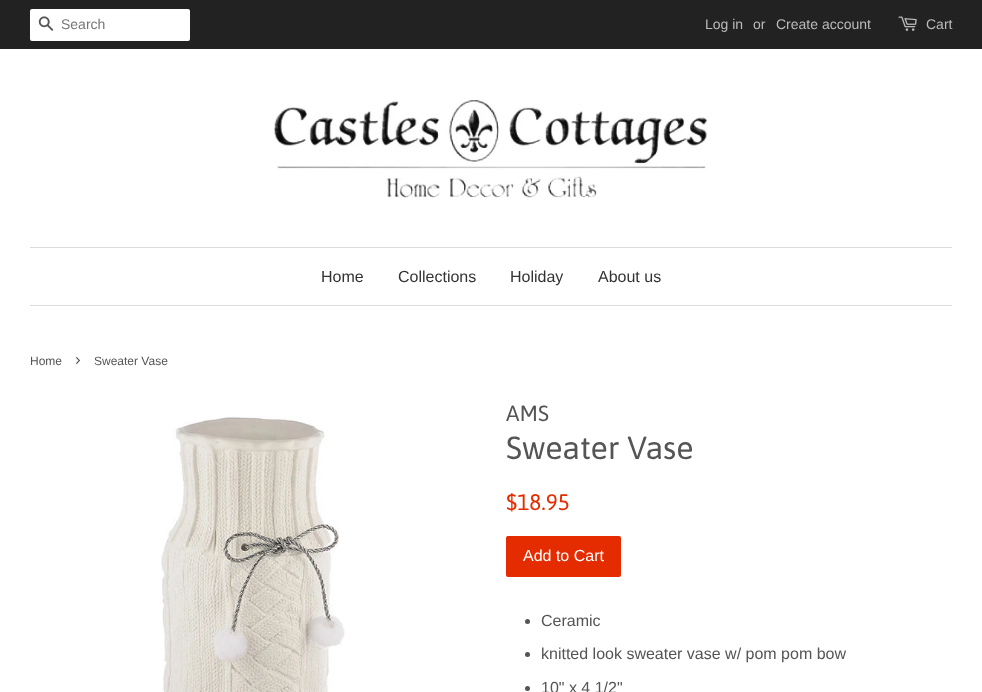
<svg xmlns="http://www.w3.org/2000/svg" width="982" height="692">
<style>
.a{font:14px Liberation Sans;fill:#757575}
.b{font:14px Liberation Sans;fill:#bbb}
.c{font:16px Liberation Sans;fill:#333}
.d{font:12px Liberation Sans;fill:#555}
.e{font:17px Liberation Sans;fill:#555}
.f{font:22px Asap;fill:#555}
.g{font:32px Asap;fill:#555}
.h{font:22.5px Asap;fill:#e42c00}
.i{font:16px Liberation Sans;fill:#fff}
.j{font:16px Liberation Sans;fill:#555}
</style>
<rect width="100%" height="100%" fill="#fff"/>
<path fill="#222" d="M0 0h982v49H0z"/>
<rect fill="#fff" x="30" y="9" width="160" height="32" rx="2"/>
<image href="1.png" x="38" y="16" width="16" height="15"/>
<image href="2.png" x="898" y="16" width="19" height="15"/>
<image href="3.png" x="273" y="100" width="435" height="98"/>
<path fill="#ddd" d="M30 247h922v1H30z"/>
<path fill="#ddd" d="M30 305h922v1H30z"/>
<image href="4.png" x="161" y="416" width="184" height="276"/>
<rect fill="#e42c00" x="506" y="536" width="115" height="41" rx="2"/>
<circle fill="#555" cx="527.5" cy="621.5" r="2.5"/>
<circle fill="#555" cx="527.5" cy="654.5" r="2.5"/>
<circle fill="#555" cx="527.5" cy="688.5" r="2.5"/>
<text class="a" x="61" y="29">Search</text>
<text class="b" x="705" y="29">Log in</text>
<text class="b" x="753" y="29">or</text>
<text class="b" x="776" y="29">Create account</text>
<text class="b" x="926" y="29">Cart</text>
<text class="c" x="321" y="282">Home</text>
<text class="c" x="398" y="282">Collections</text>
<text class="c" x="510" y="282">Holiday</text>
<text class="c" x="598" y="282">About us</text>
<text class="d" x="30" y="365">Home</text>
<text class="e" x="75" y="365">›</text>
<text class="d" x="94" y="365">Sweater Vase</text>
<text class="f" x="506" y="421">AMS</text>
<text class="g" x="506" y="459">Sweater Vase</text>
<text class="h" x="506" y="510">$18.95</text>
<text class="i" x="523" y="561">Add to Cart</text>
<text class="j" x="541" y="626">Ceramic</text>
<text class="j" x="541" y="659">knitted look sweater vase w/ pom pom bow</text>
<text class="j" x="541" y="693">10" x 4 1/2"</text>
</svg>
